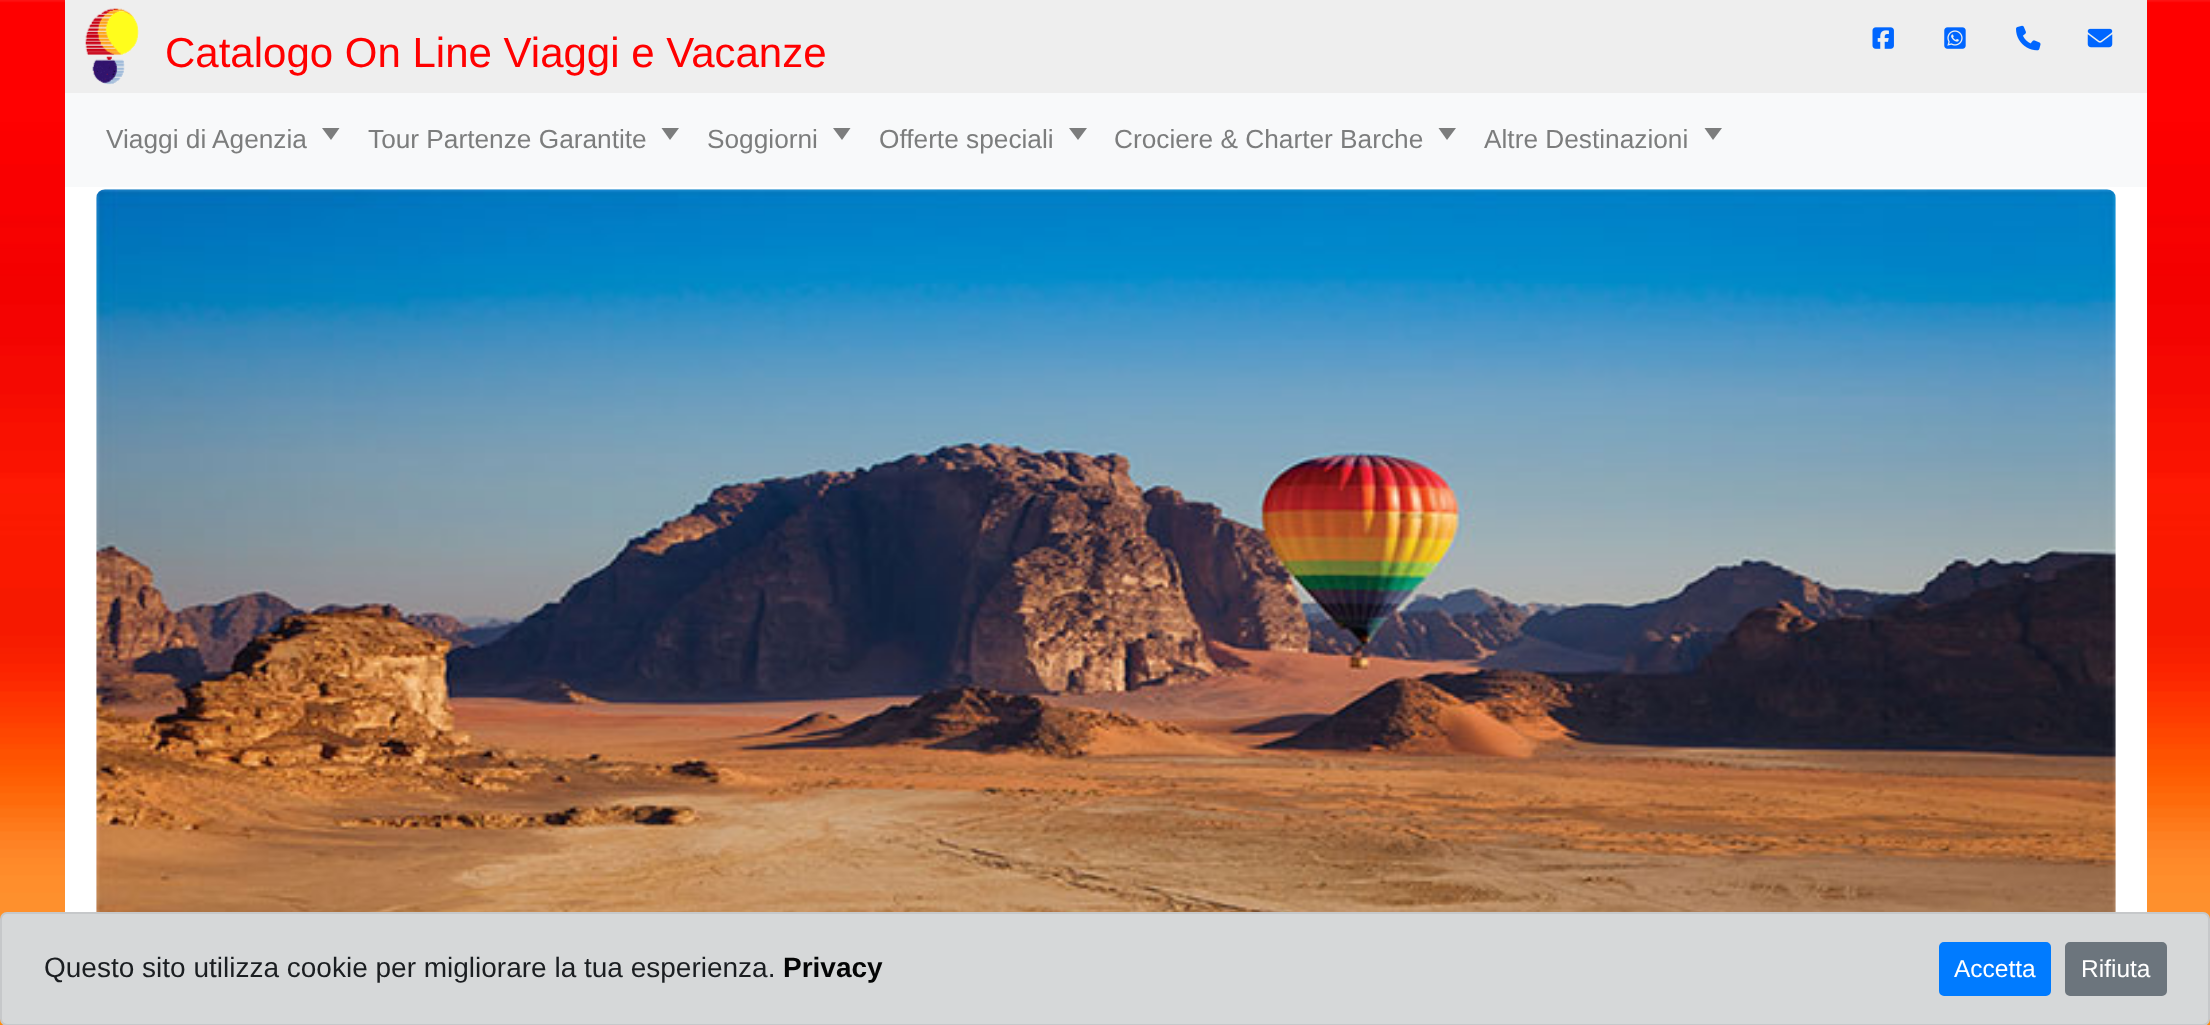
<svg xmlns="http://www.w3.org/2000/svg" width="2210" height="1025">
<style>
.a{font:42px Liberation Sans;fill:#f00}
.b{font:26.25px Liberation Sans;fill:#7c7d7d}
.c{font:28px Liberation Sans;fill:#1b1e21}
.d{font:bold 28px Liberation Sans;fill:#040505}
.e{font:24.5px Liberation Sans;fill:#fff}
</style>
<rect width="100%" height="100%" fill="#fff"/>
<image href="1.png" x="0" y="0" width="2210" height="1025"/>
<path fill="#eee" d="M65 0h2082v93H65z"/>
<image href="2.png" x="85" y="8" width="54" height="77"/>
<image href="3.png" x="1872" y="27" width="22" height="22"/>
<image href="4.png" x="1944" y="27" width="22" height="22"/>
<image href="5.png" x="2016" y="25" width="25" height="26"/>
<image href="6.png" x="2087" y="28" width="26" height="20"/>
<path fill="#f8f9fa" d="M65 93h2082v94H65z"/>
<path fill="#7c7d7d" d="M322 128h17.5l-8.5 12z"/>
<path fill="#7c7d7d" d="M661.5 128h17.5l-9 12z"/>
<path fill="#7c7d7d" d="M833 128h17.5l-8.5 12z"/>
<path fill="#7c7d7d" d="M1069 128h18l-9 12z"/>
<path fill="#7c7d7d" d="M1438.5 128h17.5l-9 12z"/>
<path fill="#7c7d7d" d="M1704.5 128h17.5l-9 12z"/>
<path fill="#fff" d="M65 187h2082v725H65z"/>
<image href="7.png" x="96" y="189" width="2020" height="723"/>
<rect fill="#d6d8d9" stroke="#c6c8ca" stroke-width="2" x="1" y="913" width="2208" height="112" rx="6"/>
<rect fill="#007bff" stroke="#007bff" stroke-width="2" x="1940" y="943" width="110" height="52" rx="4"/>
<rect fill="#6c757d" stroke="#6c757d" stroke-width="2" x="2066" y="943" width="100" height="52" rx="4"/>
<text class="a" x="165" y="67">Catalogo On Line Viaggi e Vacanze</text>
<text class="b" x="106" y="148">Viaggi di Agenzia</text>
<text class="b" x="368" y="148">Tour Partenze Garantite</text>
<text class="b" x="707" y="148">Soggiorni</text>
<text class="b" x="879" y="148">Offerte speciali</text>
<text class="b" x="1114" y="148">Crociere &amp; Charter Barche</text>
<text class="b" x="1484" y="148">Altre Destinazioni</text>
<text class="c" x="44" y="977">Questo sito utilizza cookie per migliorare la tua esperienza.</text>
<text class="d" x="783" y="977">Privacy</text>
<text class="e" x="1954" y="977">Accetta</text>
<text class="e" x="2081" y="977">Rifiuta</text>
</svg>
